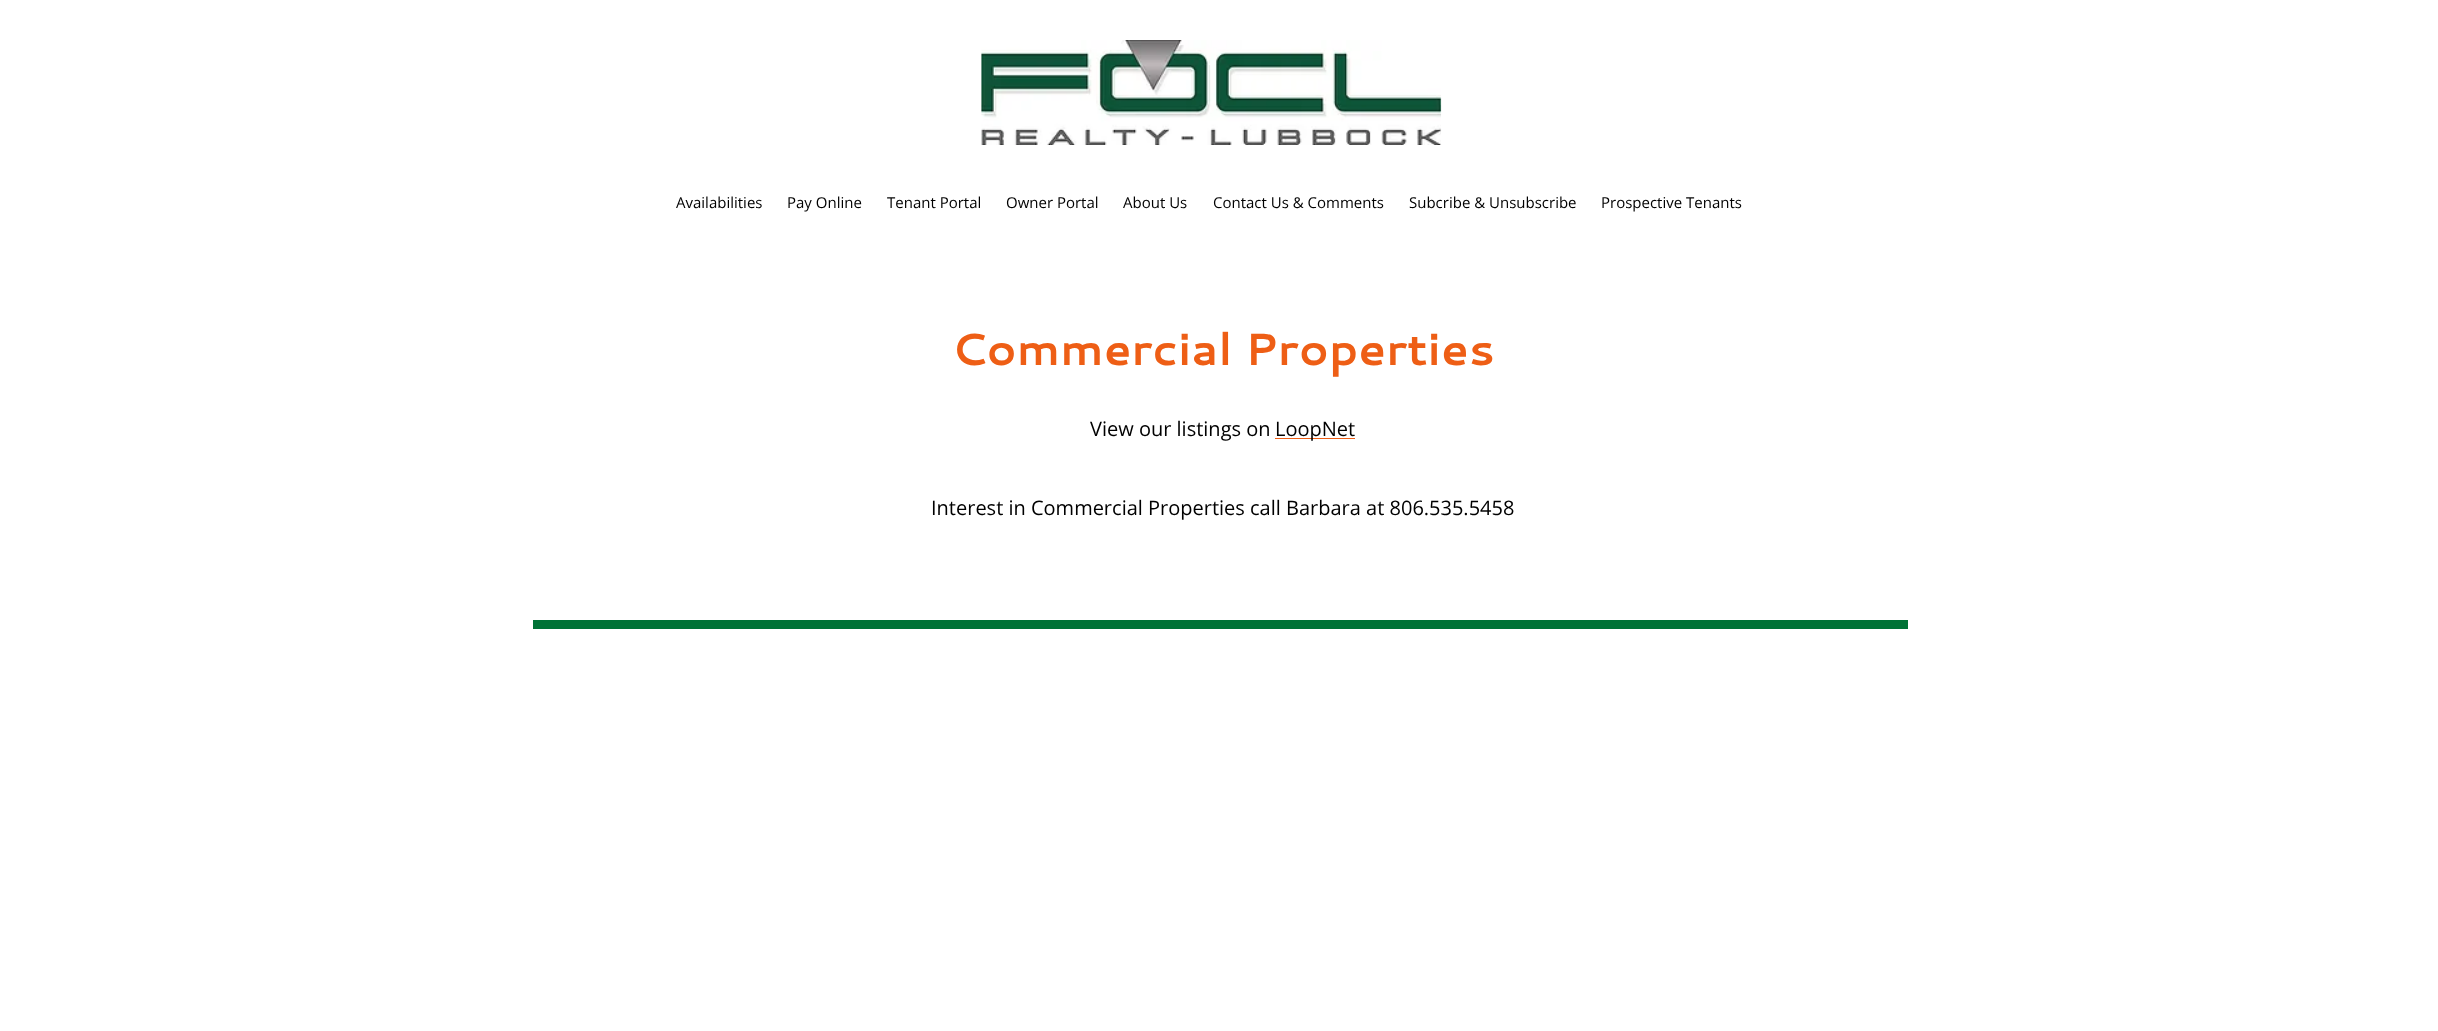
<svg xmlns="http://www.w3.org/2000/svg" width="2438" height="1031">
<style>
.a{font:15px Open Sans;fill:#000}
.b{font:bold 45px Cantarell;fill:#ee5e15}
.c{font:20px Open Sans;fill:#000}
</style>
<rect width="100%" height="100%" fill="#fff"/>
<image href="1.png" x="981" y="40" width="461" height="105"/>
<path fill="#ee5e15" d="M1275 438h80v1H1275z"/>
<path fill="#007236" d="M533 620h1375v9H533z"/>
<text class="a" x="676" y="208">Availabilities</text>
<text class="a" x="787" y="208">Pay Online</text>
<text class="a" x="887" y="208">Tenant Portal</text>
<text class="a" x="1006" y="208">Owner Portal</text>
<text class="a" x="1123" y="208">About Us</text>
<text class="a" x="1213" y="208">Contact Us &amp; Comments</text>
<text class="a" x="1409" y="208">Subcribe &amp; Unsubscribe</text>
<text class="a" x="1601" y="208">Prospective Tenants</text>
<text class="b" x="951" y="365">Commercial Properties</text>
<text class="c" x="1090" y="436">View our listings on</text>
<text class="c" x="1275" y="436">LoopNet</text>
<text class="c" x="931" y="515">Interest in Commercial Properties call Barbara at 806.535.5458</text>
</svg>
